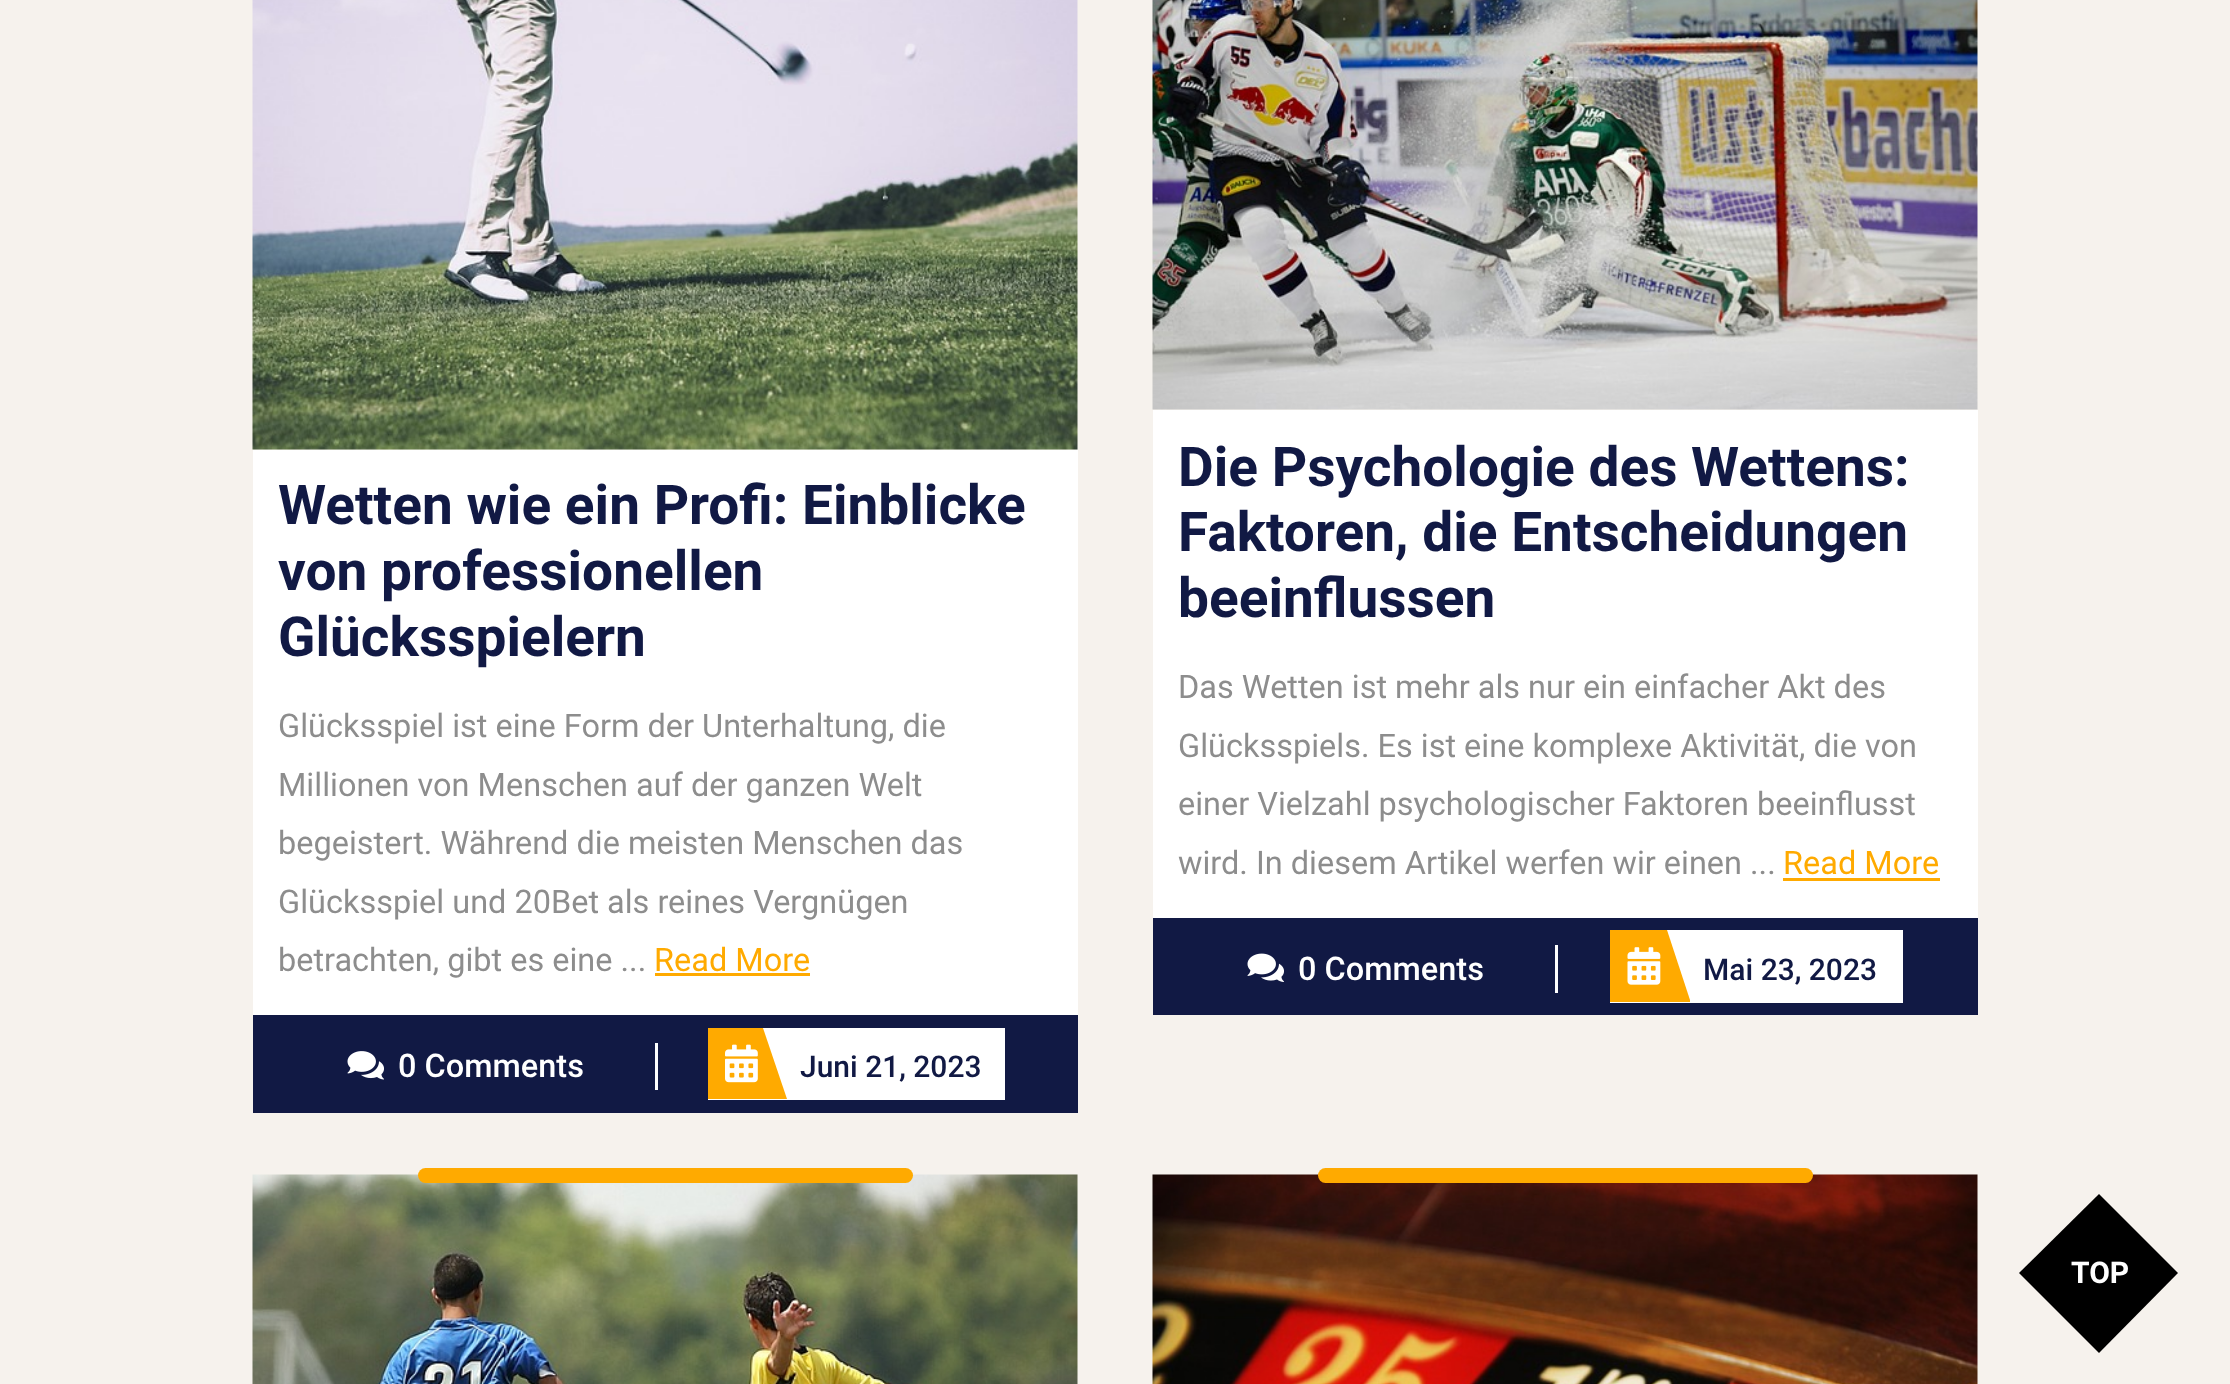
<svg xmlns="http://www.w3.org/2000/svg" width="2230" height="1384">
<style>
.a{font:bold 55px Roboto;fill:#111944}
.b{font:32.5px Roboto;fill:#8d8d8d}
.c{font:32.5px Roboto;fill:#fa0}
.d{font:500 32.5px Roboto;fill:#fff}
.e{font:500 30px Roboto;fill:#111944}
.f{font:bold 30px Roboto;fill:#fff}
</style>
<rect width="100%" height="100%" fill="#f6f2ed"/>
<image href="1.png" x="252" y="0" width="826" height="450"/>
<path fill="#fff" d="M253 450h825v565H253z"/>
<path fill="#fa0" d="M655 973h155v3H655z"/>
<path fill="#111944" d="M253 1015h825v98H253z"/>
<path fill="#fff" d="M655 1043h3v47H655z"/>
<image href="2.png" x="347" y="1051" width="37" height="29"/>
<path fill="#fff" d="M708 1028h297v72H708z"/>
<path fill="#fa0" d="M708 1028h55l24 71h-79z"/>
<image href="3.png" x="725" y="1044" width="33" height="39"/>
<image href="4.png" x="1152" y="0" width="826" height="410"/>
<path fill="#fff" d="M1153 410h825v508H1153z"/>
<path fill="#fa0" d="M1783 878h157v3H1783z"/>
<path fill="#111944" d="M1153 918h825v97H1153z"/>
<path fill="#fff" d="M1555 945h3v48H1555z"/>
<image href="5.png" x="1247" y="953" width="37" height="29"/>
<path fill="#fff" d="M1610 930h293v73H1610z"/>
<path fill="#fa0" d="M1690 1002h-80v-72h57l23 70z"/>
<image href="6.png" x="1627" y="947" width="34" height="38"/>
<image href="7.png" x="252" y="1174" width="826" height="210"/>
<rect fill="#fa0" x="418" y="1168" width="495" height="15" rx="7.5"/>
<image href="8.png" x="1152" y="1174" width="826" height="210"/>
<rect fill="#fa0" x="1318" y="1168" width="495" height="15" rx="7.5"/>
<path fill="#000" d="M2019 1273l80-79l79 79l-79 80z"/>
<text class="a" x="278" y="524">Wetten wie ein Profi: Einblicke</text>
<text class="a" x="278" y="590">von professionellen</text>
<text class="a" x="278" y="656">Glücksspielern</text>
<text class="b" x="278" y="737">Glücksspiel ist eine Form der Unterhaltung, die</text>
<text class="b" x="278" y="796">Millionen von Menschen auf der ganzen Welt</text>
<text class="b" x="278" y="854">begeistert. Während die meisten Menschen das</text>
<text class="b" x="278" y="913">Glücksspiel und 20Bet als reines Vergnügen</text>
<text class="b" x="278" y="971">betrachten, gibt es eine ...</text>
<text class="c" x="654" y="971">Read More</text>
<text class="d" x="398" y="1077">0 Comments</text>
<text class="e" x="800" y="1077">Juni 21, 2023</text>
<text class="a" x="1178" y="486">Die Psychologie des Wettens:</text>
<text class="a" x="1178" y="551">Faktoren, die Entscheidungen</text>
<text class="a" x="1178" y="617">beeinflussen</text>
<text class="b" x="1178" y="698">Das Wetten ist mehr als nur ein einfacher Akt des</text>
<text class="b" x="1178" y="757">Glücksspiels. Es ist eine komplexe Aktivität, die von</text>
<text class="b" x="1178" y="815">einer Vielzahl psychologischer Faktoren beeinflusst</text>
<text class="b" x="1178" y="874">wird. In diesem Artikel werfen wir einen ...</text>
<text class="c" x="1783" y="874">Read More</text>
<text class="d" x="1298" y="980">0 Comments</text>
<text class="e" x="1703" y="980">Mai 23, 2023</text>
<text class="f" x="2071" y="1283">TOP</text>
</svg>
